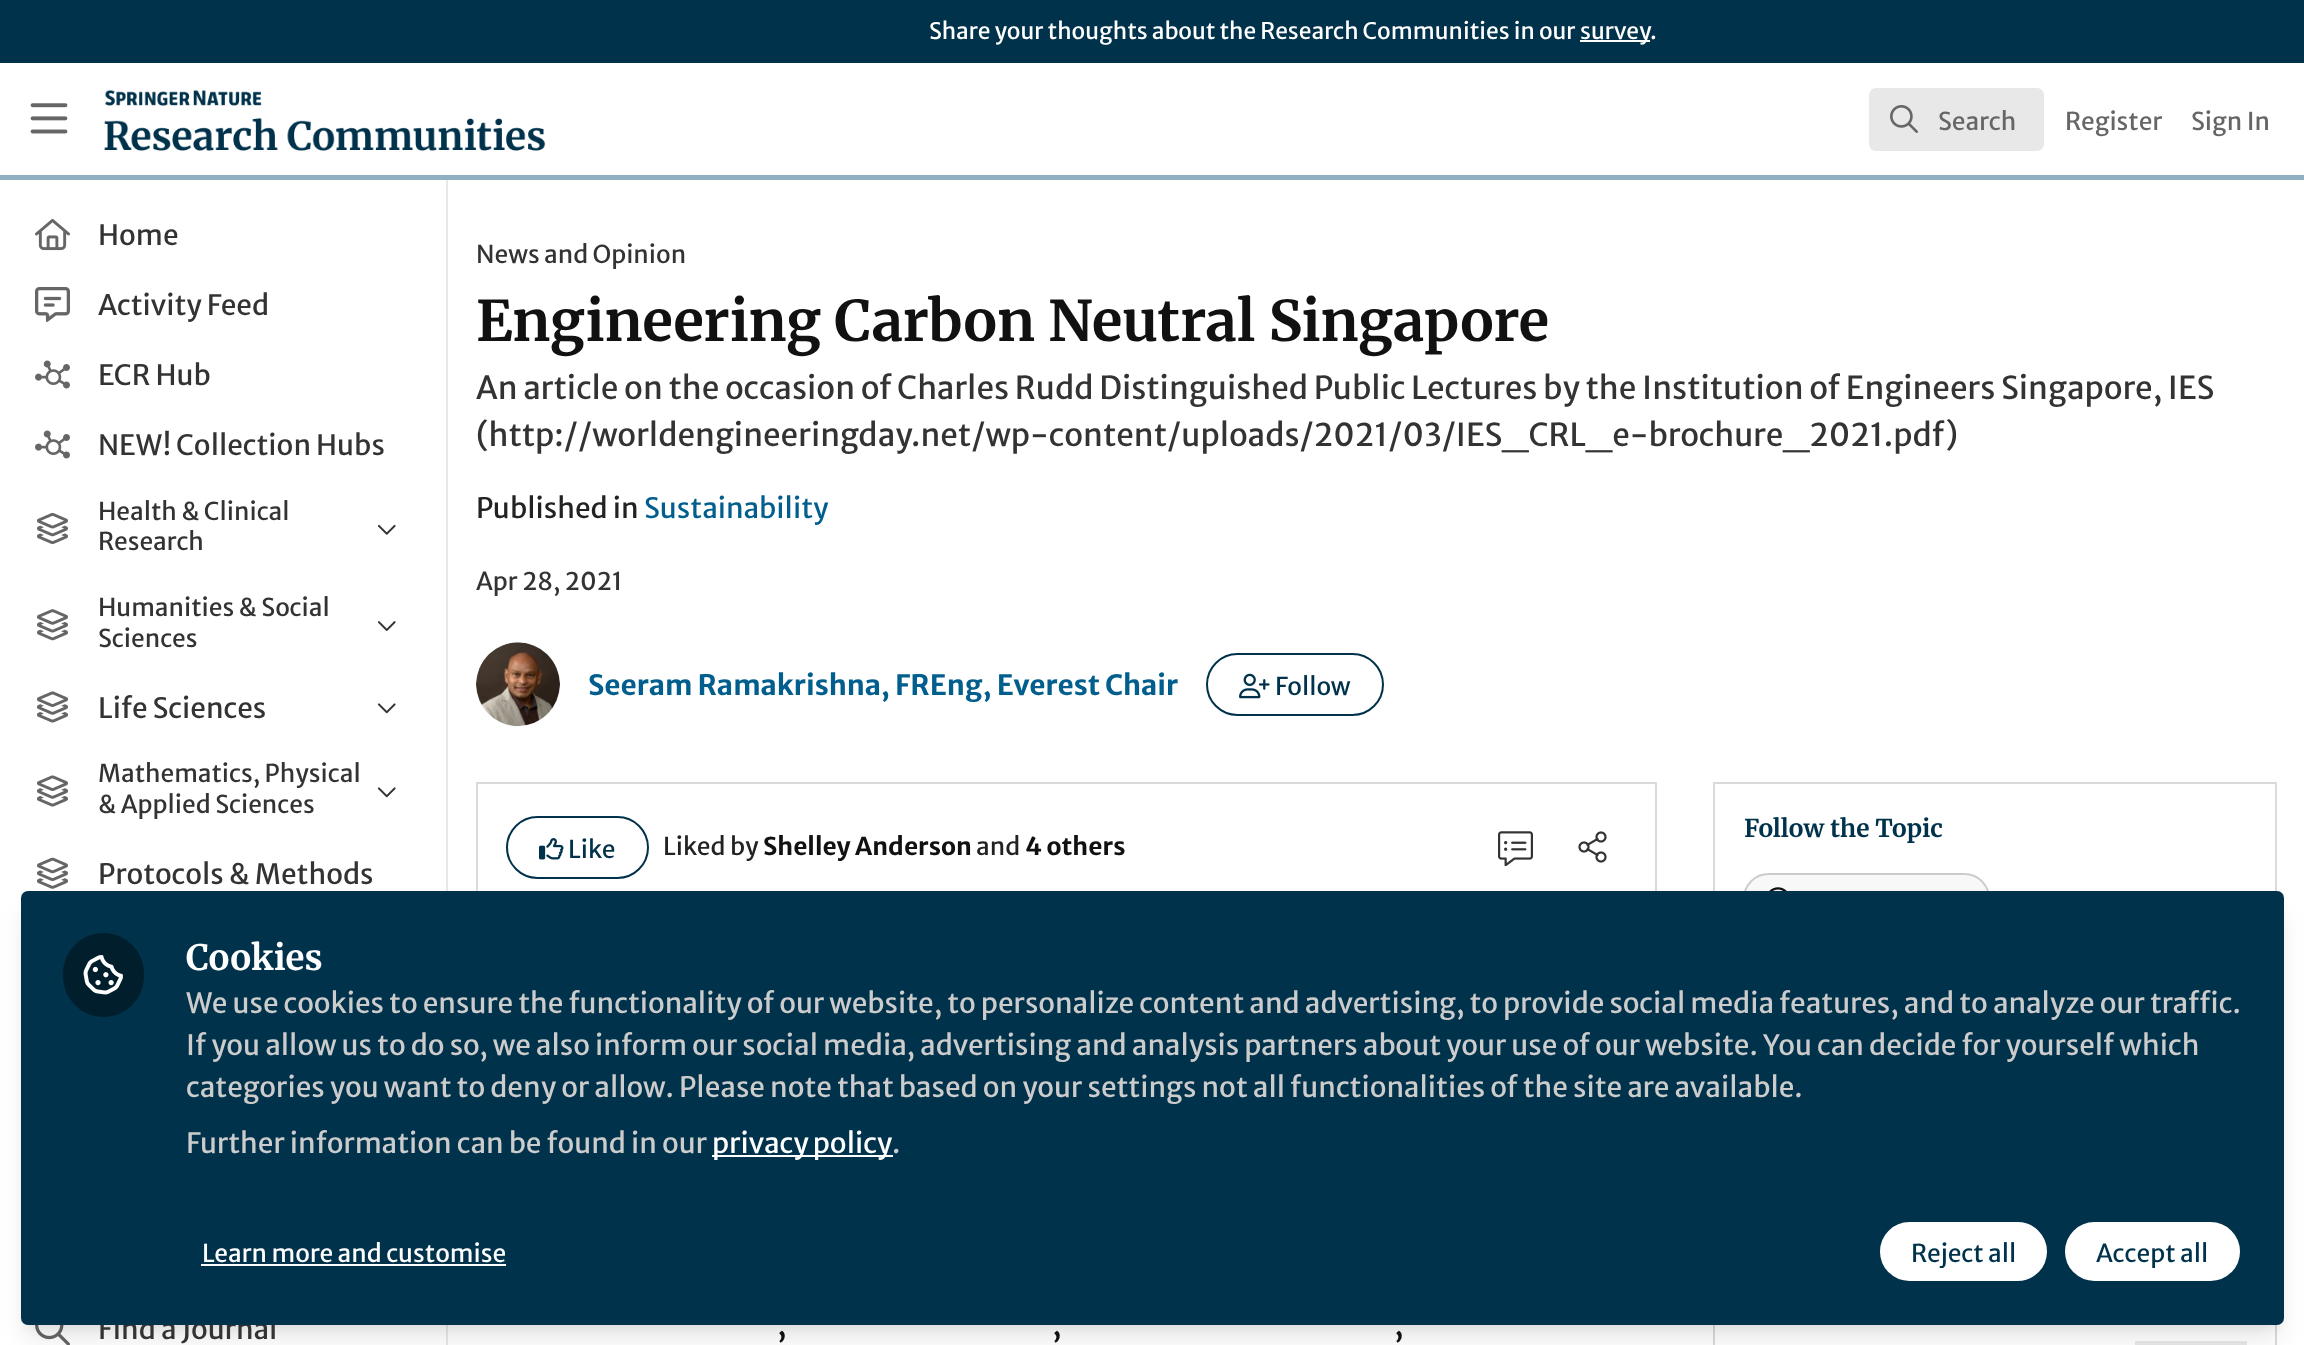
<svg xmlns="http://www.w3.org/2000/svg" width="2304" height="1345">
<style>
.a{font:22.75px Merriweather Sans;fill:#fff}
.b{font:24.5px Merriweather Sans;fill:#666}
.c{font:28px Merriweather Sans;fill:#333}
.d{font:24.5px Merriweather Sans;fill:#333}
.e{font:bold 56px Merriweather;fill:#111}
.f{font:31.5px Merriweather Sans;fill:#333}
.g{font:28px Merriweather Sans;fill:#222}
.h{font:28px Merriweather Sans;fill:#025e8d}
.i{font:bold 28px Merriweather Sans;fill:#025e8d}
.j{font:24.5px Merriweather Sans;fill:#01324b}
.k{font:bold 24.5px Merriweather;fill:#01324b}
.l{font:24.5px Merriweather Sans;fill:#222}
.m{font:bold 24.5px Merriweather Sans;fill:#111}
.n{font:31.5px Merriweather Sans;fill:#111}
.o{font:bold 35px Merriweather;fill:#fff}
.p{font:28px Merriweather Sans;fill:#ccc}
.q{font:28px Merriweather Sans;fill:#fff}
.r{font:24.5px Merriweather Sans;fill:#fff}
</style>
<rect width="100%" height="100%" fill="#fff"/>
<path fill="#01324b" d="M0 0h2304v63H0z"/>
<path fill="#fff" d="M1580 40h70v2H1580z"/>
<path fill="#e8e8e8" d="M446 175h2v1170H446z"/>
<path fill="#90b0c2" d="M0 175v5h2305v-112v107z"/>
<image href="1.png" x="30" y="103" width="38" height="31"/>
<image href="2.png" x="104" y="89" width="442" height="62"/>
<rect fill="#e8e8e8" x="1869" y="88" width="175" height="63" rx="7"/>
<image href="3.png" x="1890" y="105" width="28" height="28"/>
<image href="4.png" x="35" y="219" width="35" height="32"/>
<image href="5.png" x="35" y="287" width="35" height="35"/>
<image href="6.png" x="35" y="360" width="35" height="29"/>
<image href="6.png" x="35" y="430" width="35" height="29"/>
<image href="7.png" x="37" y="512" width="31" height="33"/>
<image href="8.png" x="377" y="524" width="19" height="11"/>
<image href="9.png" x="37" y="609" width="31" height="32"/>
<image href="10.png" x="377" y="621" width="19" height="10"/>
<image href="11.png" x="37" y="691" width="31" height="32"/>
<image href="12.png" x="377" y="703" width="19" height="11"/>
<image href="11.png" x="37" y="775" width="31" height="32"/>
<image href="12.png" x="377" y="787" width="19" height="11"/>
<image href="13.png" x="37" y="857" width="31" height="32"/>
<image href="14.png" x="35" y="1325" width="35" height="20"/>
<image href="15.png" x="476" y="642" width="84" height="85"/>
<rect fill="none" stroke="#01324b" stroke-width="2" x="1207" y="654" width="176" height="61" rx="30.5"/>
<image href="16.png" x="1239" y="673" width="31" height="26"/>
<path fill="none" stroke="#dadada" stroke-width="2" d="M1714 783h562v170H1714z"/>
<rect fill="#f8f8f8" stroke="#ccc" stroke-width="2" x="1744" y="874" width="245" height="49" rx="24.5"/>
<image href="17.png" x="1769" y="887" width="18" height="4"/>
<path fill="none" stroke="#dadada" stroke-width="2" d="M1714 969h562v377H1714z"/>
<path fill="#e8e8e8" d="M2135 1341h112v4H2135z"/>
<path fill="none" stroke="#dadada" stroke-width="2" d="M477 783h1179v128H477z"/>
<rect fill="none" stroke="#01324b" stroke-width="2" x="507" y="817" width="141" height="61" rx="30.5"/>
<image href="18.png" x="539" y="838" width="25" height="22"/>
<image href="19.png" x="1498" y="831" width="35" height="35"/>
<image href="20.png" x="1578" y="831" width="29" height="32"/>
<rect fill="#0000000d" filter="blur(5px)" x="25" y="901" width="2255" height="427" rx="4"/>
<rect fill="#0000001a" filter="blur(13px)" x="26" y="914" width="2253" height="423" rx="2"/>
<text class="a" x="929" y="39">Share your thoughts about the Research Communities in our</text>
<text class="a" x="1580" y="39">survey</text>
<text class="a" x="1650" y="39">.</text>
<text class="b" x="1938" y="130">Search</text>
<text class="b" x="2065" y="130">Register</text>
<text class="b" x="2191" y="130">Sign In</text>
<text class="c" x="98" y="245">Home</text>
<text class="c" x="98" y="315">Activity Feed</text>
<text class="c" x="98" y="385">ECR Hub</text>
<text class="c" x="98" y="455">NEW! Collection Hubs</text>
<text class="d" x="98" y="520">Health &amp; Clinical</text>
<text class="d" x="98" y="550">Research</text>
<text class="d" x="98" y="616">Humanities &amp; Social</text>
<text class="d" x="98" y="647">Sciences</text>
<text class="c" x="98" y="718">Life Sciences</text>
<text class="d" x="98" y="782">Mathematics, Physical</text>
<text class="d" x="98" y="813">&amp; Applied Sciences</text>
<text class="c" x="98" y="884">Protocols &amp; Methods</text>
<text class="c" x="98" y="1339">Find a Journal</text>
<text class="d" x="476" y="263">News and Opinion</text>
<text class="e" x="476" y="341">Engineering Carbon Neutral Singapore</text>
<text class="f" x="476" y="399">An article on the occasion of</text>
<text class="f" x="897" y="399">Charles Rudd Distinguished Public Lectures by the Institution of Engineers Singapore, IES</text>
<text class="f" x="476" y="446">(http://worldengineeringday.net/wp-content/uploads/2021/03/IES_CRL_e-brochure_2021.pdf)</text>
<text class="g" x="476" y="518">Published in</text>
<text class="h" x="644" y="518">Sustainability</text>
<text class="d" x="476" y="590">Apr 28, 2021</text>
<text class="i" x="588" y="695">Seeram Ramakrishna, FREng, Everest Chair</text>
<text class="j" x="1275" y="695">Follow</text>
<text class="k" x="1744" y="837">Follow the Topic</text>
<text class="j" x="568" y="858">Like</text>
<text class="l" x="663" y="855">Liked by</text>
<text class="m" x="763" y="855">Shelley Anderson</text>
<text class="l" x="976" y="855">and</text>
<text class="m" x="1025" y="855">4 others</text>
<text class="n" x="777" y="1335">,</text>
<text class="n" x="1052" y="1335">,</text>
<text class="n" x="1394" y="1335">,</text>
<rect fill="#01324b" x="21" y="891" width="2263" height="434" rx="7"/>
<rect fill="#011e2d" x="63" y="933" width="81" height="84" rx="40.5"/>
<image href="21.png" x="83" y="955" width="40" height="40"/>
<text class="o" x="186" y="970">Cookies</text>
<text class="p" x="186" y="1013">We use cookies to ensure the functionality of our website, to personalize content and advertising, to provide social media features, and to analyze our traffic.</text>
<text class="p" x="186" y="1055">If you allow us to do so, we also inform our social media, advertising and analysis partners about your use of our website. You can decide for yourself which</text>
<text class="p" x="186" y="1097">categories you want to deny or allow. Please note that based on your settings not all functionalities of the site are available.</text>
<text class="p" x="186" y="1153">Further information can be found in our</text>
<path fill="#fff" d="M712 1155h181v2H712z"/>
<text class="q" x="712" y="1153" word-spacing="-1">privacy policy</text>
<text class="p" x="892" y="1153">.</text>
<text class="r" x="202" y="1262">Learn more and customise</text>
<path fill="#fff" d="M201 1264h305v2H201z"/>
<rect fill="#fff" stroke="#01324b" stroke-width="2" x="1879" y="1221" width="169" height="61" rx="30.5"/>
<text class="j" x="1911" y="1262">Reject all</text>
<rect fill="#fff" stroke="#01324b" stroke-width="2" x="2064" y="1221" width="177" height="61" rx="30.5"/>
<text class="j" x="2096" y="1262">Accept all</text>
</svg>
